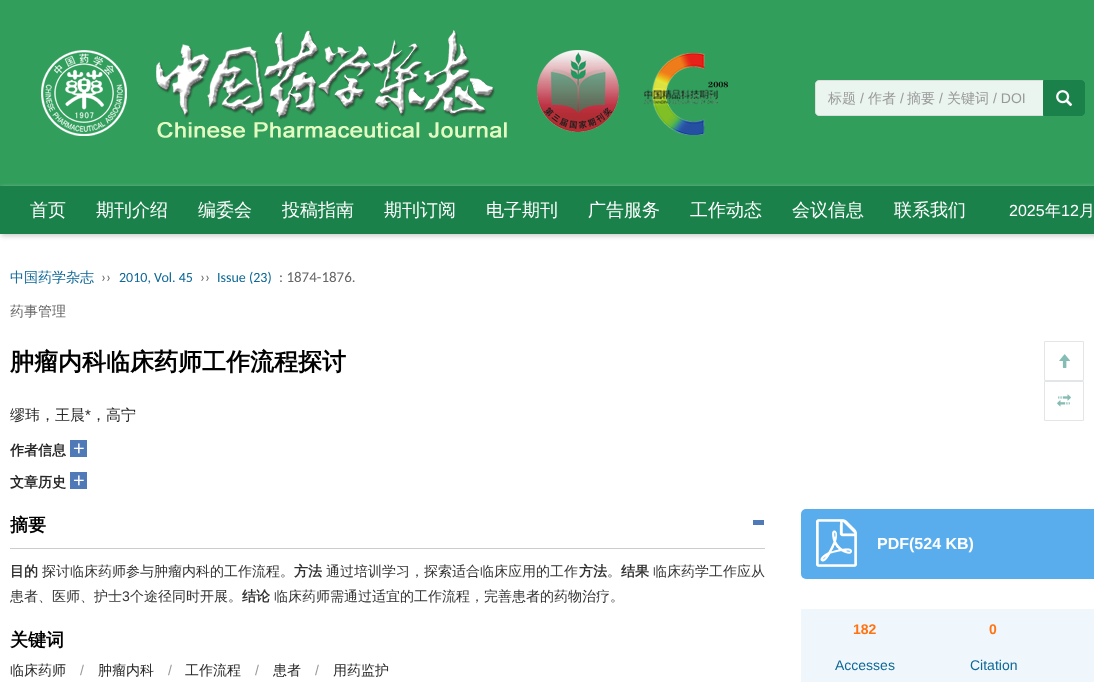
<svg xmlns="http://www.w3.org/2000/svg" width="1094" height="682">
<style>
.a{font:500 14px WenQuanYi Zen Hei;fill:#999}
.b{font:14px Liberation Sans;fill:#999}
.c{font:500 18px WenQuanYi Zen Hei;fill:#fff}
.d{font:16px Liberation Sans;fill:#fff}
.e{font:500 16px WenQuanYi Zen Hei;fill:#fff}
.f{font:500 14px WenQuanYi Zen Hei;fill:#0d6797}
.g{font:15px Carlito;fill:#666}
.h{font:14px Carlito;fill:#0d6797}
.i{font:500 14px WenQuanYi Zen Hei;fill:#666}
.j{font:bold 24px WenQuanYi Zen Hei;fill:#000}
.k{font:500 15px WenQuanYi Zen Hei;fill:#262626}
.l{font:15px Liberation Sans;fill:#262626}
.m{font:bold 14px WenQuanYi Zen Hei;fill:#262626}
.n{font:20px Liberation Sans;fill:#fff}
.o{font:bold 18px WenQuanYi Zen Hei;fill:#000}
.p{font:bold 14px WenQuanYi Zen Hei;fill:#333}
.q{font:500 14px WenQuanYi Zen Hei;fill:#333}
.r{font:14px Liberation Sans;fill:#333}
.s{font:500 14px WenQuanYi Zen Hei;fill:#262626}
.t{font:bold 16px Liberation Sans;fill:#fff}
.u{font:bold 14px Liberation Sans;fill:#ff7312}
.v{font:14px Liberation Sans;fill:#0d6797}
</style>
<rect width="100%" height="100%" fill="#319e5b"/>
<image href="1.png" x="41" y="30" width="687" height="108"/>
<path fill="#eaf5ef" stroke="#ddd" d="M819 80.5h224.5v35h-224.5c-2 0-3.5-1.5-3.5-3.5v-28c0-2 1.5-3.5 3.5-3.5z"/>
<path fill="#1a814a" stroke="#1a814a" d="M1043.5 80.5h37.5c2 0 3.5 1.5 3.5 3.5v28c0 2-1.5 3.5-3.5 3.5h-37.5z"/>
<image href="2.png" x="1056" y="90" width="17" height="17"/>
<path fill="#fff" d="M0 234h1094v448H0z"/>
<path fill="#ccc" filter="blur(2.5px)" d="M1 188h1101v48H1z"/>
<path fill="#1a814a" d="M0 186h1094v48H0z"/>
<path fill="#5079b7" d="M70 440h17v17H70z"/>
<path fill="#5079b7" d="M70 472h17v17H70z"/>
<path fill="#ccc" d="M10 548h755v1H10z"/>
<path fill="#5079b7" d="M753 520h11v5H753z"/>
<rect fill="#5aadec" x="801" y="509" width="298" height="70" rx="5"/>
<image href="3.png" x="816" y="519" width="41" height="48"/>
<path fill="#f0f7fc" d="M801 609h293v73H801z"/>
<path fill="none" stroke="#e2e6e8" d="M1044.5 341.5h39v39H1044.5z"/>
<image href="4.png" x="1059" y="354" width="11" height="14"/>
<path fill="none" stroke="#e2e6e8" d="M1044.5 381.5h39v39H1044.5z"/>
<image href="5.png" x="1057" y="394" width="14" height="13"/>
<text class="a" x="828" y="103">标题</text>
<text class="b" x="860" y="103">/</text>
<text class="a" x="868" y="103">作者</text>
<text class="b" x="900" y="103">/</text>
<text class="a" x="907" y="103">摘要</text>
<text class="b" x="939" y="103">/</text>
<text class="a" x="947" y="103">关键词</text>
<text class="b" x="993" y="103">/ DOI</text>
<text class="c" x="30" y="216">首页</text>
<text class="c" x="96" y="216">期刊介绍</text>
<text class="c" x="198" y="216">编委会</text>
<text class="c" x="282" y="216">投稿指南</text>
<text class="c" x="384" y="216">期刊订阅</text>
<text class="c" x="486" y="216">电子期刊</text>
<text class="c" x="588" y="216">广告服务</text>
<text class="c" x="690" y="216">工作动态</text>
<text class="c" x="792" y="216">会议信息</text>
<text class="c" x="894" y="216">联系我们</text>
<text class="d" x="1009" y="216">2025</text>
<text class="e" x="1045" y="216">年</text>
<text class="d" x="1061" y="216">12</text>
<text class="e" x="1079" y="216">月</text>
<text class="f" x="10" y="282">中国药学杂志</text>
<text class="g" x="101" y="282">››</text>
<text class="h" x="119" y="282">2010, Vol. 45</text>
<text class="g" x="200" y="282">››</text>
<text class="h" x="217" y="282">Issue (23)</text>
<text class="g" x="279" y="282">: 1874-1876.</text>
<text class="i" x="10" y="316">药事管理</text>
<text class="j" x="10" y="370">肿瘤内科临床药师工作流程探讨</text>
<text class="k" x="10" y="420">缪玮，王晨</text>
<text class="l" x="85" y="420">*</text>
<text class="k" x="91" y="420">，高宁</text>
<text class="m" x="10" y="455">作者信息</text>
<text class="n" x="73" y="455">+</text>
<text class="m" x="10" y="487">文章历史</text>
<text class="n" x="73" y="487">+</text>
<text class="o" x="10" y="531">摘要</text>
<text class="p" x="10" y="576">目的</text>
<text class="q" x="42" y="576">探讨临床药师参与肿瘤内科的工作流程。</text>
<text class="p" x="294" y="576">方法</text>
<text class="q" x="326" y="576">通过培训学习，探索适合临床应用的工作</text>
<text class="p" x="579" y="576">方法</text>
<text class="q" x="607" y="576">。</text>
<text class="p" x="621" y="576">结果</text>
<text class="q" x="653" y="576">临床药学工作应从</text>
<text class="q" x="10" y="601">患者、医师、护士</text>
<text class="r" x="122" y="601">3</text>
<text class="q" x="130" y="601">个途径同时开展。</text>
<text class="p" x="242" y="601">结论</text>
<text class="q" x="274" y="601">临床药师需通过适宜的工作流程，完善患者的药物治疗。</text>
<text class="o" x="10" y="646">关键词</text>
<text class="s" x="10" y="675">临床药师</text>
<text class="b" x="80" y="675">/</text>
<text class="s" x="98" y="675">肿瘤内科</text>
<text class="b" x="168" y="675">/</text>
<text class="s" x="185" y="675">工作流程</text>
<text class="b" x="255" y="675">/</text>
<text class="s" x="273" y="675">患者</text>
<text class="b" x="315" y="675">/</text>
<text class="s" x="333" y="675">用药监护</text>
<text class="t" x="877" y="549">PDF(524 KB)</text>
<text class="u" x="853" y="634">182</text>
<text class="v" x="835" y="670">Accesses</text>
<text class="u" x="989" y="634">0</text>
<text class="v" x="970" y="670">Citation</text>
</svg>
